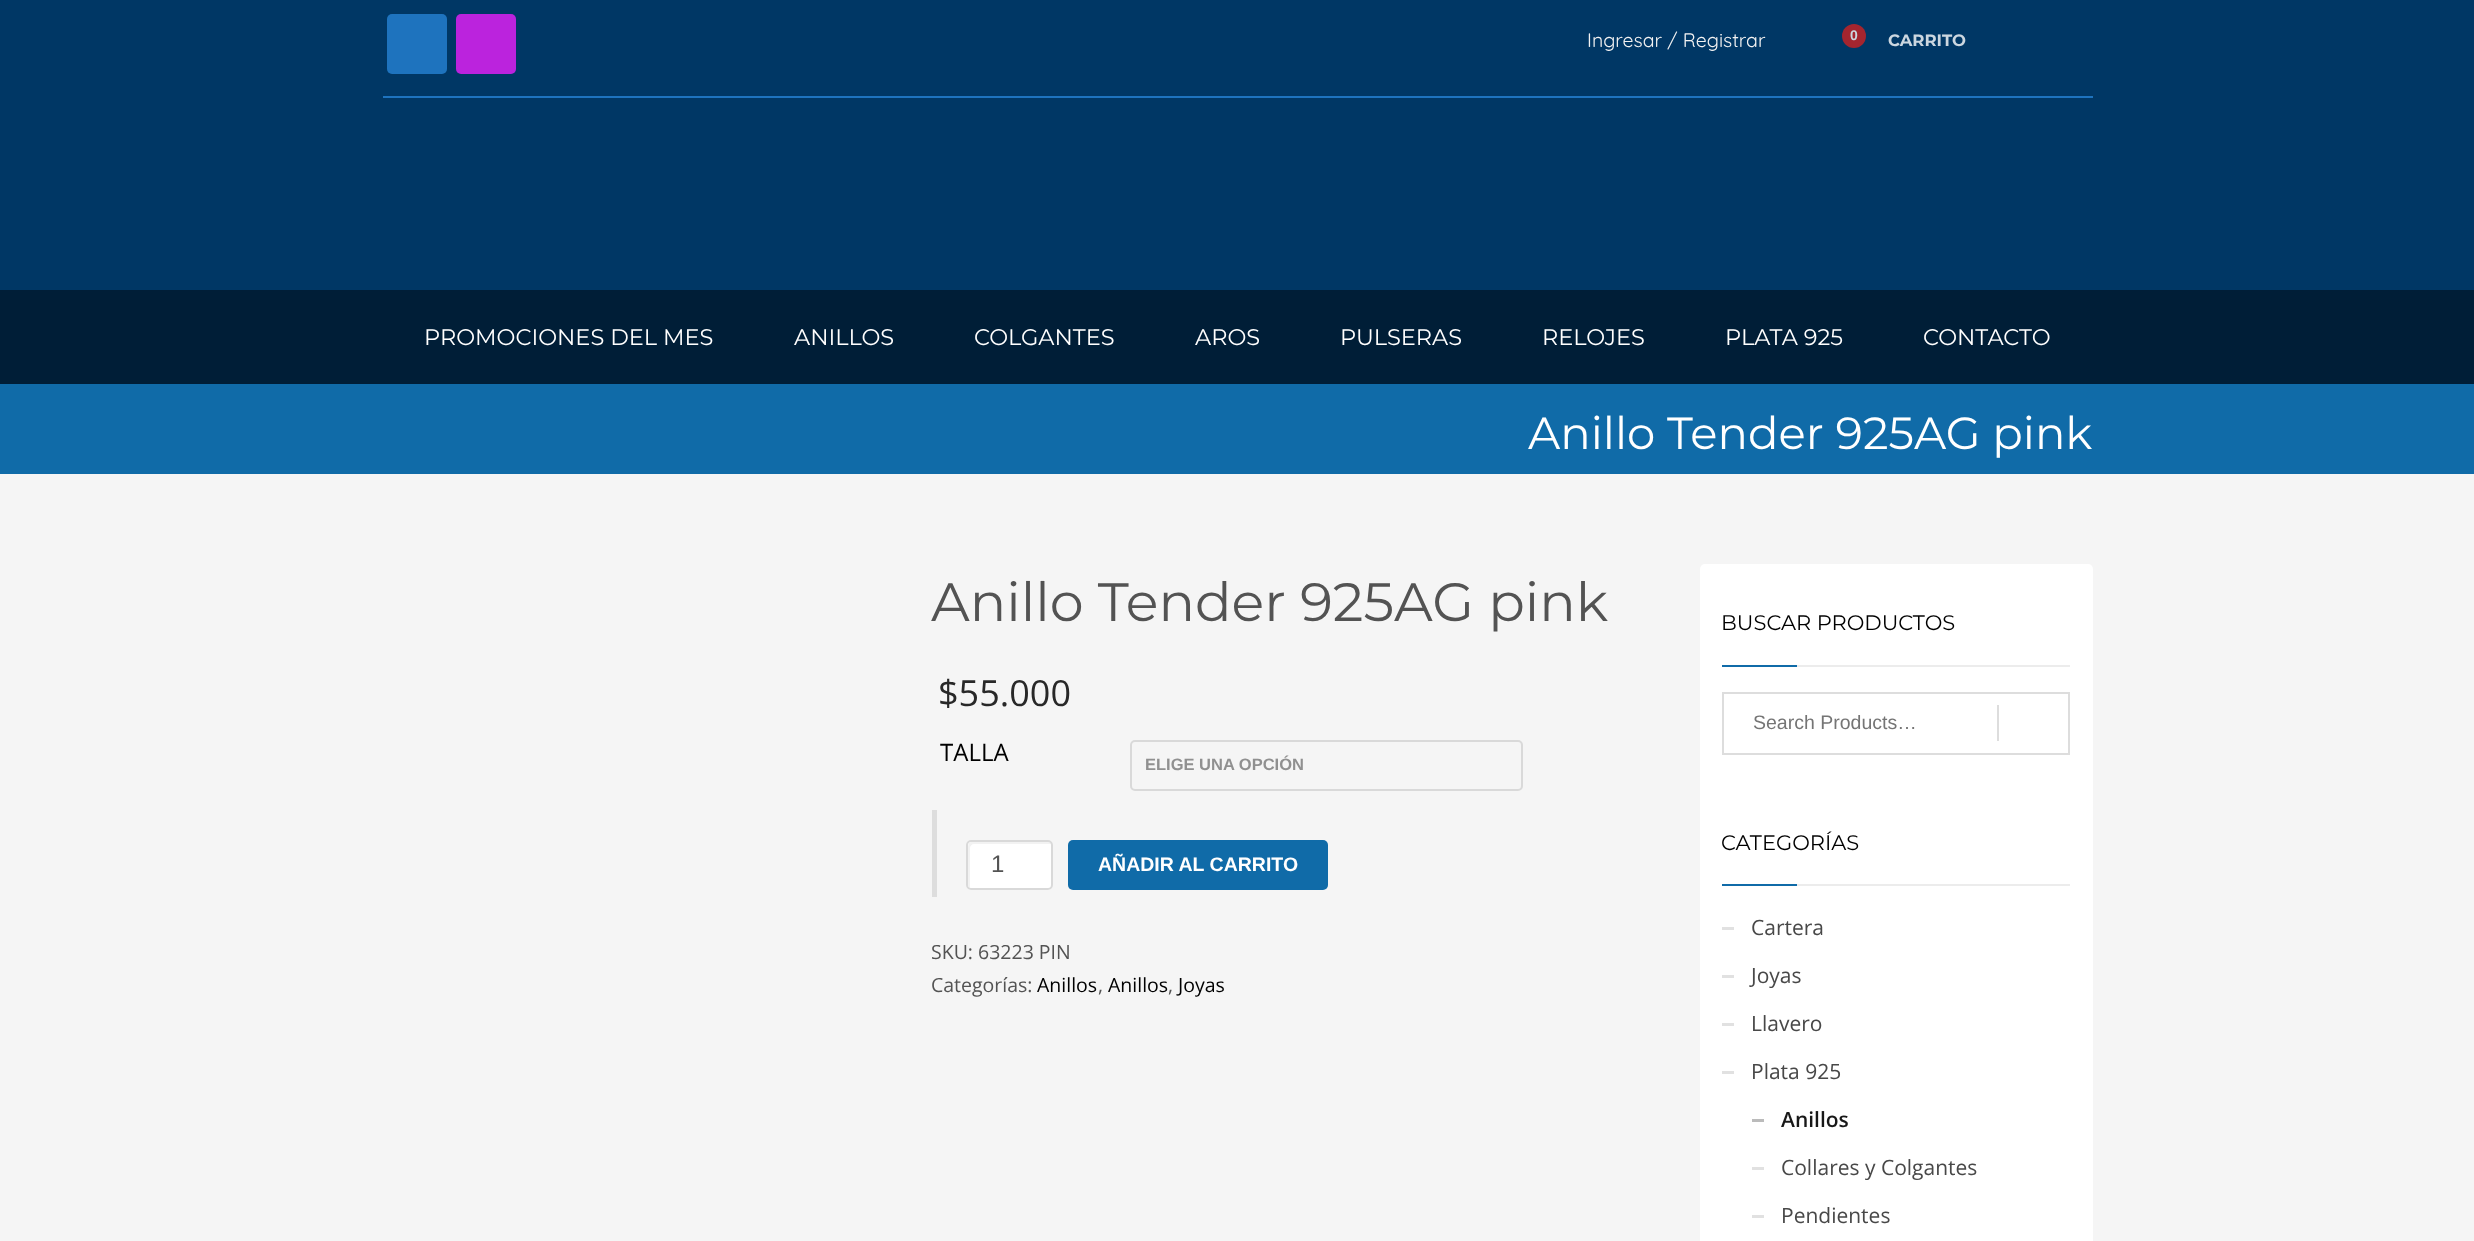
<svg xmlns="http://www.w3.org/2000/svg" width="2474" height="1241">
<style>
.a{font:300 19.5px Quicksand;fill:#f2f2f2}
.b{font:bold 14px Liberation Sans;fill:#ccd7e0}
.c{font:bold 16.5px Montserrat;fill:#ccd7e0}
.d{font:22.5px Montserrat;fill:#fff}
.e{font:45px Montserrat;fill:#fff}
.f{font:54px Montserrat;fill:#535353}
.g{font:36px Open Sans;fill:#282828}
.h{font:24px Open Sans;fill:#000}
.i{font:bold 16.5px Liberation Sans;fill:#909090}
.j{font:24px Liberation Sans;fill:#535353}
.k{font:bold 19.5px Liberation Sans;fill:#fff}
.l{font:19.5px Open Sans;fill:#535353}
.m{font:19.5px Open Sans;fill:#000}
.n{font:21px Montserrat;fill:#000}
.o{font:19.5px Liberation Sans;fill:#757575}
.p{font:21px Open Sans;fill:#484848}
.q{font:600 21px Open Sans;fill:#181818}
</style>
<rect width="100%" height="100%" fill="#f5f5f5"/>
<path fill="#003765" d="M0 0h2474v290H0z"/>
<rect fill="#1e73be" x="387" y="14" width="60" height="60" rx="5"/>
<rect fill="#bb23dd" x="456" y="14" width="60" height="60" rx="5"/>
<circle fill="#a4252f" cx="1854" cy="36" r="12"/>
<path fill="#1e73be" d="M383 96h1710v2H383z"/>
<path fill="#001e37" d="M0 290h2474v94H0z"/>
<path fill="#106ba8" d="M0 384h2474v90H0z"/>
<rect fill="none" stroke="#d9d9d9" stroke-width="2" x="1131" y="741" width="391" height="49" rx="4"/>
<path fill="#ddd" d="M932 810h5v87H932z"/>
<rect fill="#fff" x="966" y="840" width="87" height="50" rx="5"/>
<path fill="#f2f2f2" d="M974 844h78l-2-2h-79l-2 1c-2 2-1 24-1 29v6c0 2-1 9 2 10v-40c0-2 2-4 4-4z"/>
<rect fill="none" stroke="#d9d9d9" stroke-width="2" x="967" y="841" width="85" height="48" rx="4"/>
<rect fill="#106ba8" x="1068" y="840" width="260" height="50" rx="5"/>
<rect fill="#fff" x="1700" y="564" width="393" height="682" rx="5"/>
<path fill="#106ba8" d="M1722 665h75v2H1722z"/>
<path fill="#ececec" d="M1797 665h273v2H1797z"/>
<path fill="none" stroke="#ddd" stroke-width="2" d="M1723 693h346v61H1723z"/>
<path fill="#ddd" d="M1997 705h2v36H1997z"/>
<path fill="#106ba8" d="M1722 884h75v2H1722z"/>
<path fill="#ececec" d="M1797 884h273v2H1797z"/>
<path fill="#e1e1e1" d="M1722 927h12v3H1722z"/>
<path fill="#e1e1e1" d="M1722 975h12v3H1722z"/>
<path fill="#e1e1e1" d="M1722 1023h12v3H1722z"/>
<path fill="#e1e1e1" d="M1722 1071h12v3H1722z"/>
<path fill="#bbb" d="M1752 1119h12v3H1752z"/>
<path fill="#e1e1e1" d="M1752 1167h12v3H1752z"/>
<path fill="#e1e1e1" d="M1752 1215h12v3H1752z"/>
<text class="a" x="1587" y="47">Ingresar / Registrar</text>
<text class="b" x="1850" y="40">0</text>
<text class="c" x="1888" y="46">CARRITO</text>
<text class="d" x="424" y="345">PROMOCIONES DEL MES</text>
<text class="d" x="794" y="345">ANILLOS</text>
<text class="d" x="974" y="345">COLGANTES</text>
<text class="d" x="1195" y="345">AROS</text>
<text class="d" x="1340" y="345">PULSERAS</text>
<text class="d" x="1542" y="345">RELOJES</text>
<text class="d" x="1725" y="345">PLATA 925</text>
<text class="d" x="1923" y="345">CONTACTO</text>
<text class="e" x="1528" y="449">Anillo Tender 925AG pink</text>
<text class="f" x="931" y="621">Anillo Tender 925AG pink</text>
<text class="g" x="938" y="706">$55.000</text>
<text class="h" x="940" y="761">TALLA</text>
<text class="i" x="1145" y="770">ELIGE UNA OPCIÓN</text>
<text class="j" x="991" y="872">1</text>
<text class="k" x="1098" y="871">AÑADIR AL CARRITO</text>
<text class="l" x="931" y="959">SKU: 63223 PIN</text>
<text class="l" x="931" y="992">Categorías:</text>
<text class="m" x="1037" y="992">Anillos</text>
<text class="l" x="1098" y="992">,</text>
<text class="m" x="1108" y="992">Anillos</text>
<text class="l" x="1168" y="992">,</text>
<text class="m" x="1178" y="992">Joyas</text>
<text class="n" x="1721" y="630">BUSCAR PRODUCTOS</text>
<text class="o" x="1753" y="729">Search Products…</text>
<text class="n" x="1721" y="850">CATEGORÍAS</text>
<text class="p" x="1751" y="935">Cartera</text>
<text class="p" x="1751" y="983">Joyas</text>
<text class="p" x="1751" y="1031">Llavero</text>
<text class="p" x="1751" y="1079">Plata 925</text>
<text class="q" x="1781" y="1127">Anillos</text>
<text class="p" x="1781" y="1175">Collares y Colgantes</text>
<text class="p" x="1781" y="1223">Pendientes</text>
</svg>
